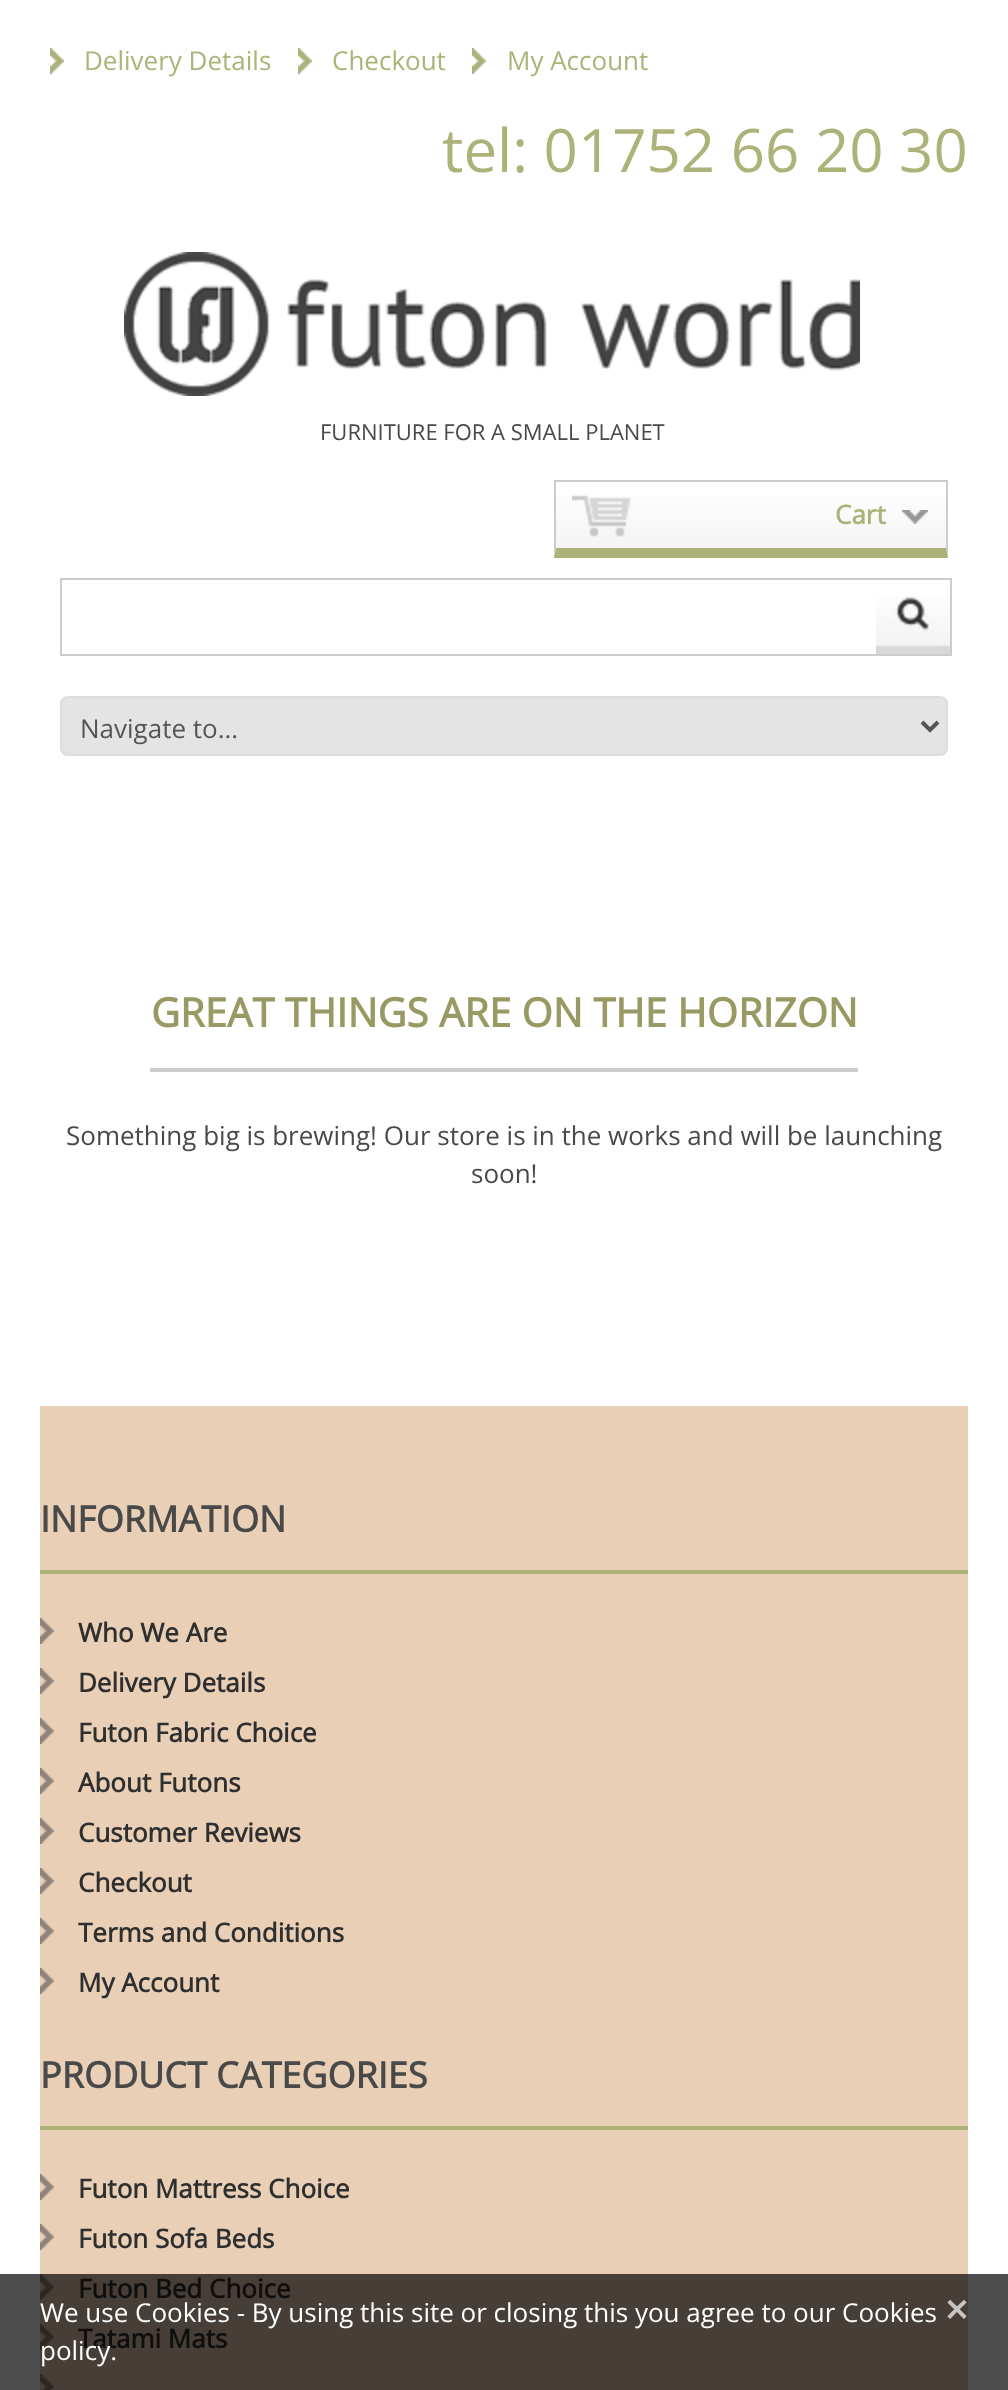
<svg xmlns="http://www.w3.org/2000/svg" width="1008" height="2390">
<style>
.a{font:26px Open Sans;fill:#adb278}
.b{font:60px Open Sans;fill:#adb278}
.c{font:22px Open Sans;fill:#494949}
.d{font:bold 26px Open Sans;fill:#adb278}
.e{font:26px Open Sans;fill:#555}
.f{font:bold 40px Open Sans;fill:#999a63}
.g{font:26px Open Sans;fill:#494949}
.h{font:bold 36px Open Sans;fill:#494949}
.i{font:bold 26px Open Sans;fill:#2f2f2f}
.j{font:bold 26px Open Sans;fill:#0e0e0e}
.k{font:26px Open Sans;fill:#fff}
.l{font:bold 40px Open Sans;fill:#c7c5c3}
</style>
<defs>
<linearGradient id="g1" gradientUnits="userSpaceOnUse" x1="751" y1="480" x2="751" y2="558"><stop offset="0" stop-color="#fff"/><stop offset="1" stop-color="#f3f3f3"/></linearGradient>
</defs>
<rect width="100%" height="100%" fill="#fff"/>
<path fill="#4d4d4d" d="M0 2274h1008v116H0z"/>
<image href="1.png" x="50" y="48" width="14" height="26"/>
<image href="1.png" x="298" y="48" width="14" height="26"/>
<image href="1.png" x="472" y="48" width="14" height="26"/>
<image href="2.png" x="124" y="252" width="736" height="144"/>
<path fill="url(#g1)" d="M554 496h394v62H554z"/>
<image href="3.png" x="572" y="495" width="59" height="42"/>
<path fill="#ccc" d="M554 480h394v2H554z"/>
<path fill="#ccc" d="M948 480v78l-2-10v-66z"/>
<path fill="#adb278" d="M948 558h-394l2-10h390z"/>
<path fill="#ccc" d="M554 558v-78l2 2v66z"/>
<image href="4.png" x="902" y="510" width="26" height="14"/>
<path fill="none" stroke="#ccc" stroke-width="2" d="M61 579h890v76H61z"/>
<image href="5.png" x="876" y="596" width="74" height="58"/>
<rect fill="#e4e4e4" stroke="#ddd" stroke-width="2" x="61" y="697" width="886" height="58" rx="7"/>
<path fill="none" stroke="#555" stroke-width="4" d="M922 722l8 8l8-8"/>
<path fill="#ccc" d="M150 1068h708v4H150z"/>
<path fill="#e9cfb6" d="M40 1406h928v868H40z"/>
<path fill="#463e37" d="M40 2274h928v116H40z"/>
<path fill="#adb278" d="M40 1570h928v4H40z"/>
<image href="6.png" x="40" y="1618" width="14" height="26"/>
<image href="6.png" x="40" y="1668" width="14" height="26"/>
<image href="6.png" x="40" y="1718" width="14" height="26"/>
<image href="6.png" x="40" y="1768" width="14" height="26"/>
<image href="6.png" x="40" y="1818" width="14" height="26"/>
<image href="6.png" x="40" y="1868" width="14" height="26"/>
<image href="6.png" x="40" y="1918" width="14" height="26"/>
<image href="6.png" x="40" y="1968" width="14" height="26"/>
<path fill="#adb278" d="M40 2126h928v4H40z"/>
<image href="6.png" x="40" y="2174" width="14" height="26"/>
<image href="6.png" x="40" y="2224" width="14" height="26"/>
<image href="7.png" x="40" y="2274" width="14" height="26"/>
<image href="7.png" x="40" y="2324" width="14" height="26"/>
<image href="8.png" x="40" y="2374" width="14" height="16"/>
<text class="a" x="84" y="70">Delivery Details</text>
<text class="a" x="332" y="70">Checkout</text>
<text class="a" x="507" y="70">My Account</text>
<text class="b" x="442" y="172">tel: 01752 66 20 30</text>
<text class="c" x="320" y="440">FURNITURE FOR A SMALL PLANET</text>
<text class="d" x="835" y="524">Cart</text>
<text class="e" x="80" y="738">Navigate to...</text>
<text class="f" x="151" y="1027">GREAT THINGS ARE ON THE HORIZON</text>
<text class="g" x="66" y="1145">Something big is brewing! Our store is in the works and will be launching</text>
<text class="g" x="471" y="1183">soon!</text>
<text class="h" x="40" y="1532">INFORMATION</text>
<text class="i" x="78" y="1642">Who We Are</text>
<text class="i" x="78" y="1692">Delivery Details</text>
<text class="i" x="78" y="1742">Futon Fabric Choice</text>
<text class="i" x="78" y="1792">About Futons</text>
<text class="i" x="78" y="1842">Customer Reviews</text>
<text class="i" x="78" y="1892">Checkout</text>
<text class="i" x="78" y="1942">Terms and Conditions</text>
<text class="i" x="78" y="1992">My Account</text>
<text class="h" x="40" y="2088">PRODUCT CATEGORIES</text>
<text class="i" x="78" y="2198">Futon Mattress Choice</text>
<text class="i" x="78" y="2248">Futon Sofa Beds</text>
<text class="j" x="78" y="2298">Futon Bed Choice</text>
<text class="j" x="78" y="2348">Tatami Mats</text>
<text class="k" x="40" y="2322">We use Cookies - By using this site or closing this you agree to our Cookies</text>
<text class="l" x="945" y="2324">×</text>
<text class="k" x="40" y="2360">policy.</text>
</svg>
